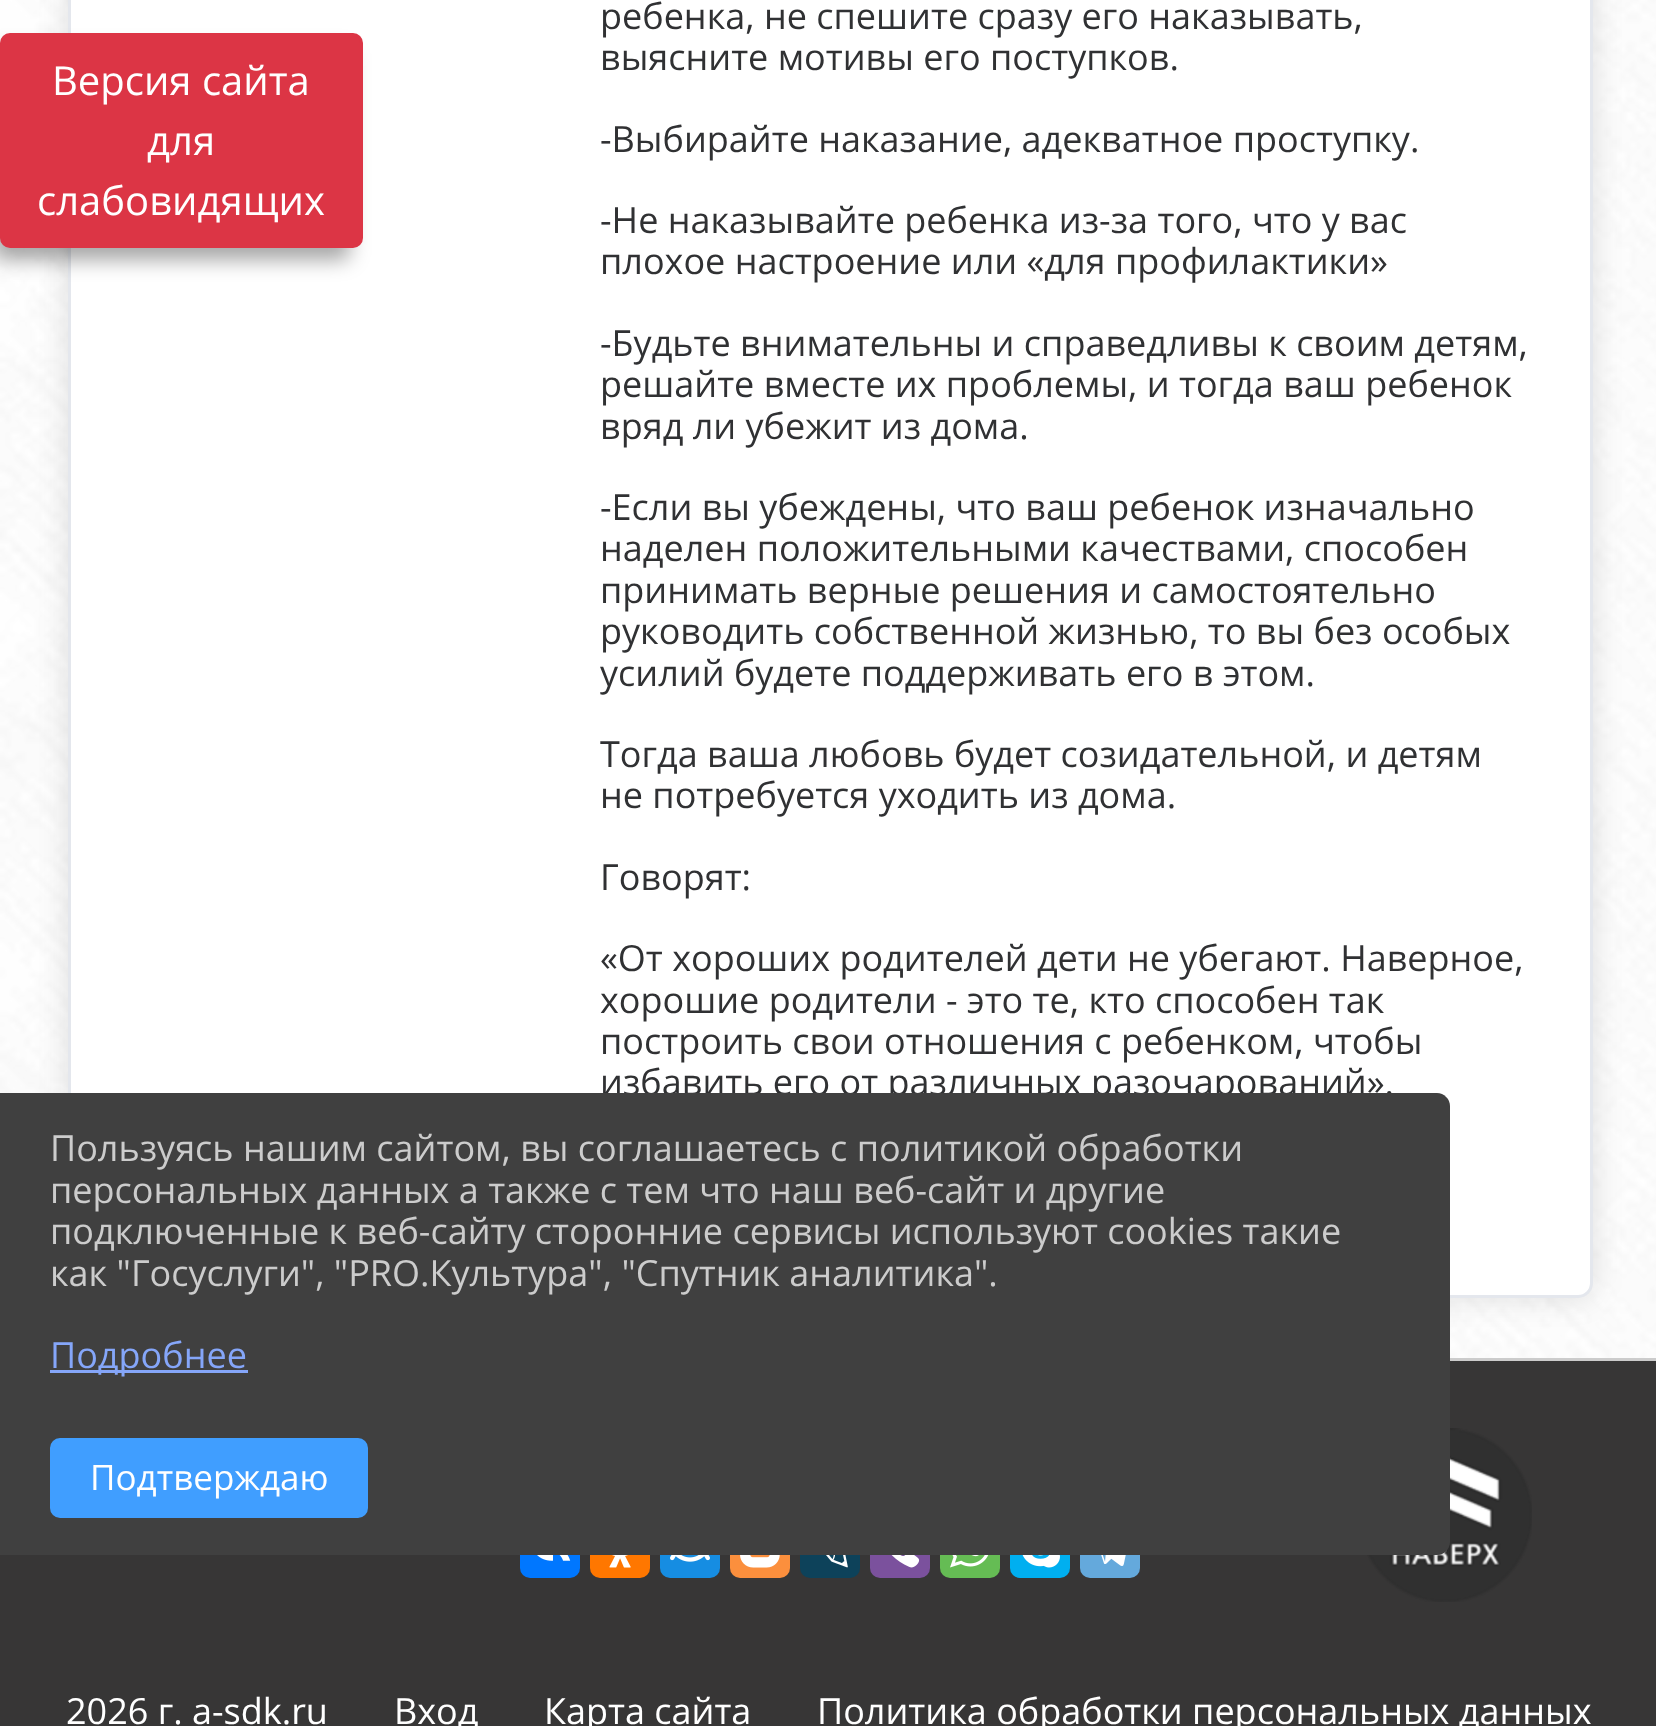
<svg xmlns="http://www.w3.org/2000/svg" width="1656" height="1726">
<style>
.a{font:36px Open Sans;fill:#303133}
.b{font:36px Open Sans;fill:#fff}
.c{font:40px Open Sans;fill:#fff}
.d{font:36px Open Sans;fill:#ccc}
.e{font:36px Open Sans;fill:#85a6f9}
.f{font:35px Open Sans;fill:#fff}
</style>
<rect width="100%" height="100%" fill="#fff"/>
<image href="1.png" x="0" y="0" width="1656" height="1358"/>
<rect fill="#0000001f" filter="blur(15px)" x="68" y="-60" width="1525" height="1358" rx="15"/>
<rect fill="#fff" stroke="#e4e7ed" stroke-width="3" x="69.5" y="-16.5" width="1522" height="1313" rx="13.5"/>
<path fill="#373636" d="M0 1361h1656v365H0z"/>
<path fill="#ccc" d="M1450 1358h206v3H1450z"/>
<rect fill="#07f" x="520" y="1518" width="60" height="60" rx="10"/>
<image href="2.png" x="537" y="1555" width="34" height="6"/>
<rect fill="#f70" x="590" y="1518" width="60" height="60" rx="10"/>
<image href="3.png" x="609" y="1555" width="22" height="13"/>
<rect fill="#168de2" x="660" y="1518" width="60" height="60" rx="10"/>
<image href="4.png" x="670" y="1555" width="40" height="7"/>
<rect fill="#fb8f3d" x="730" y="1518" width="60" height="60" rx="10"/>
<image href="5.png" x="740" y="1555" width="40" height="13"/>
<rect fill="#0d425a" x="800" y="1518" width="60" height="60" rx="10"/>
<image href="6.png" x="826" y="1555" width="22" height="13"/>
<rect fill="#7b519d" x="870" y="1518" width="60" height="60" rx="10"/>
<image href="7.png" x="891" y="1555" width="29" height="13"/>
<rect fill="#65bc54" x="940" y="1518" width="60" height="60" rx="10"/>
<image href="8.png" x="950" y="1555" width="39" height="13"/>
<rect fill="#00aff0" x="1010" y="1518" width="60" height="60" rx="10"/>
<image href="9.png" x="1022" y="1555" width="38" height="13"/>
<rect fill="#64a9dc" x="1080" y="1518" width="60" height="60" rx="10"/>
<image href="10.png" x="1101" y="1555" width="25" height="11"/>
<image href="11.png" x="1367" y="1428" width="165" height="174"/>
<rect fill="#00000059" filter="blur(10px)" x="-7" y="50" width="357" height="210" rx="8"/>
<rect fill="#dc3545" stroke="#dc3545" stroke-width="3" x="1.5" y="34.5" width="360" height="212" rx="8.5"/>
<text class="a" x="600" y="29">ребенка, не спешите сразу его наказывать,</text>
<text class="a" x="600" y="70">выясните мотивы его поступков.</text>
<text class="a" x="600" y="152">-Выбирайте наказание, адекватное проступку.</text>
<text class="a" x="600" y="233">-Не наказывайте ребенка из-за того, что у вас</text>
<text class="a" x="600" y="274">плохое настроение или «для профилактики»</text>
<text class="a" x="600" y="356">-Будьте внимательны и справедливы к своим детям,</text>
<text class="a" x="600" y="397">решайте вместе их проблемы, и тогда ваш ребенок</text>
<text class="a" x="600" y="439">вряд ли убежит из дома.</text>
<text class="a" x="600" y="520">-Если вы убеждены, что ваш ребенок изначально</text>
<text class="a" x="600" y="561">наделен положительными качествами, способен</text>
<text class="a" x="600" y="603">принимать верные решения и самостоятельно</text>
<text class="a" x="600" y="644">руководить собственной жизнью, то вы без особых</text>
<text class="a" x="600" y="686">усилий будете поддерживать его в этом.</text>
<text class="a" x="600" y="767">Тогда ваша любовь будет созидательной, и детям</text>
<text class="a" x="600" y="808">не потребуется уходить из дома.</text>
<text class="a" x="600" y="890">Говорят:</text>
<text class="a" x="600" y="971">«От хороших родителей дети не убегают. Наверное,</text>
<text class="a" x="600" y="1013">хорошие родители - это те, кто способен так</text>
<text class="a" x="600" y="1054">построить свои отношения с ребенком, чтобы</text>
<text class="a" x="600" y="1095">избавить его от различных разочарований».</text>
<text class="b" x="66" y="1724">2026 г. a-sdk.ru</text>
<text class="b" x="394" y="1724">Вход</text>
<text class="b" x="544" y="1724">Карта сайта</text>
<text class="b" x="817" y="1724">Политика обработки персональных данных</text>
<text class="c" x="52" y="95">Версия сайта</text>
<text class="c" x="147" y="155">для</text>
<text class="c" x="37" y="215">слабовидящих</text>
<path fill="#404040" d="M0 1093h1437c7 0 13 6 13 13v436c0 7-6 13-13 13h-1437z"/>
<text class="d" x="50" y="1161">Пользуясь нашим сайтом, вы соглашаетесь с политикой обработки</text>
<text class="d" x="50" y="1203">персональных данных а также с тем что наш веб-сайт и другие</text>
<text class="d" x="50" y="1244">подключенные к веб-сайту сторонние сервисы используют cookies такие</text>
<text class="d" x="50" y="1286">как "Госуслуги", "PRO.Культура", "Спутник аналитика".</text>
<path fill="#85a6f9" d="M50 1370h198v3H50z"/>
<text class="e" x="50" y="1368">Подробнее</text>
<rect fill="#409eff" stroke="#409eff" stroke-width="3" x="51.5" y="1439.5" width="315" height="77" rx="8.5"/>
<text class="f" x="90" y="1490">Подтверждаю</text>
</svg>
